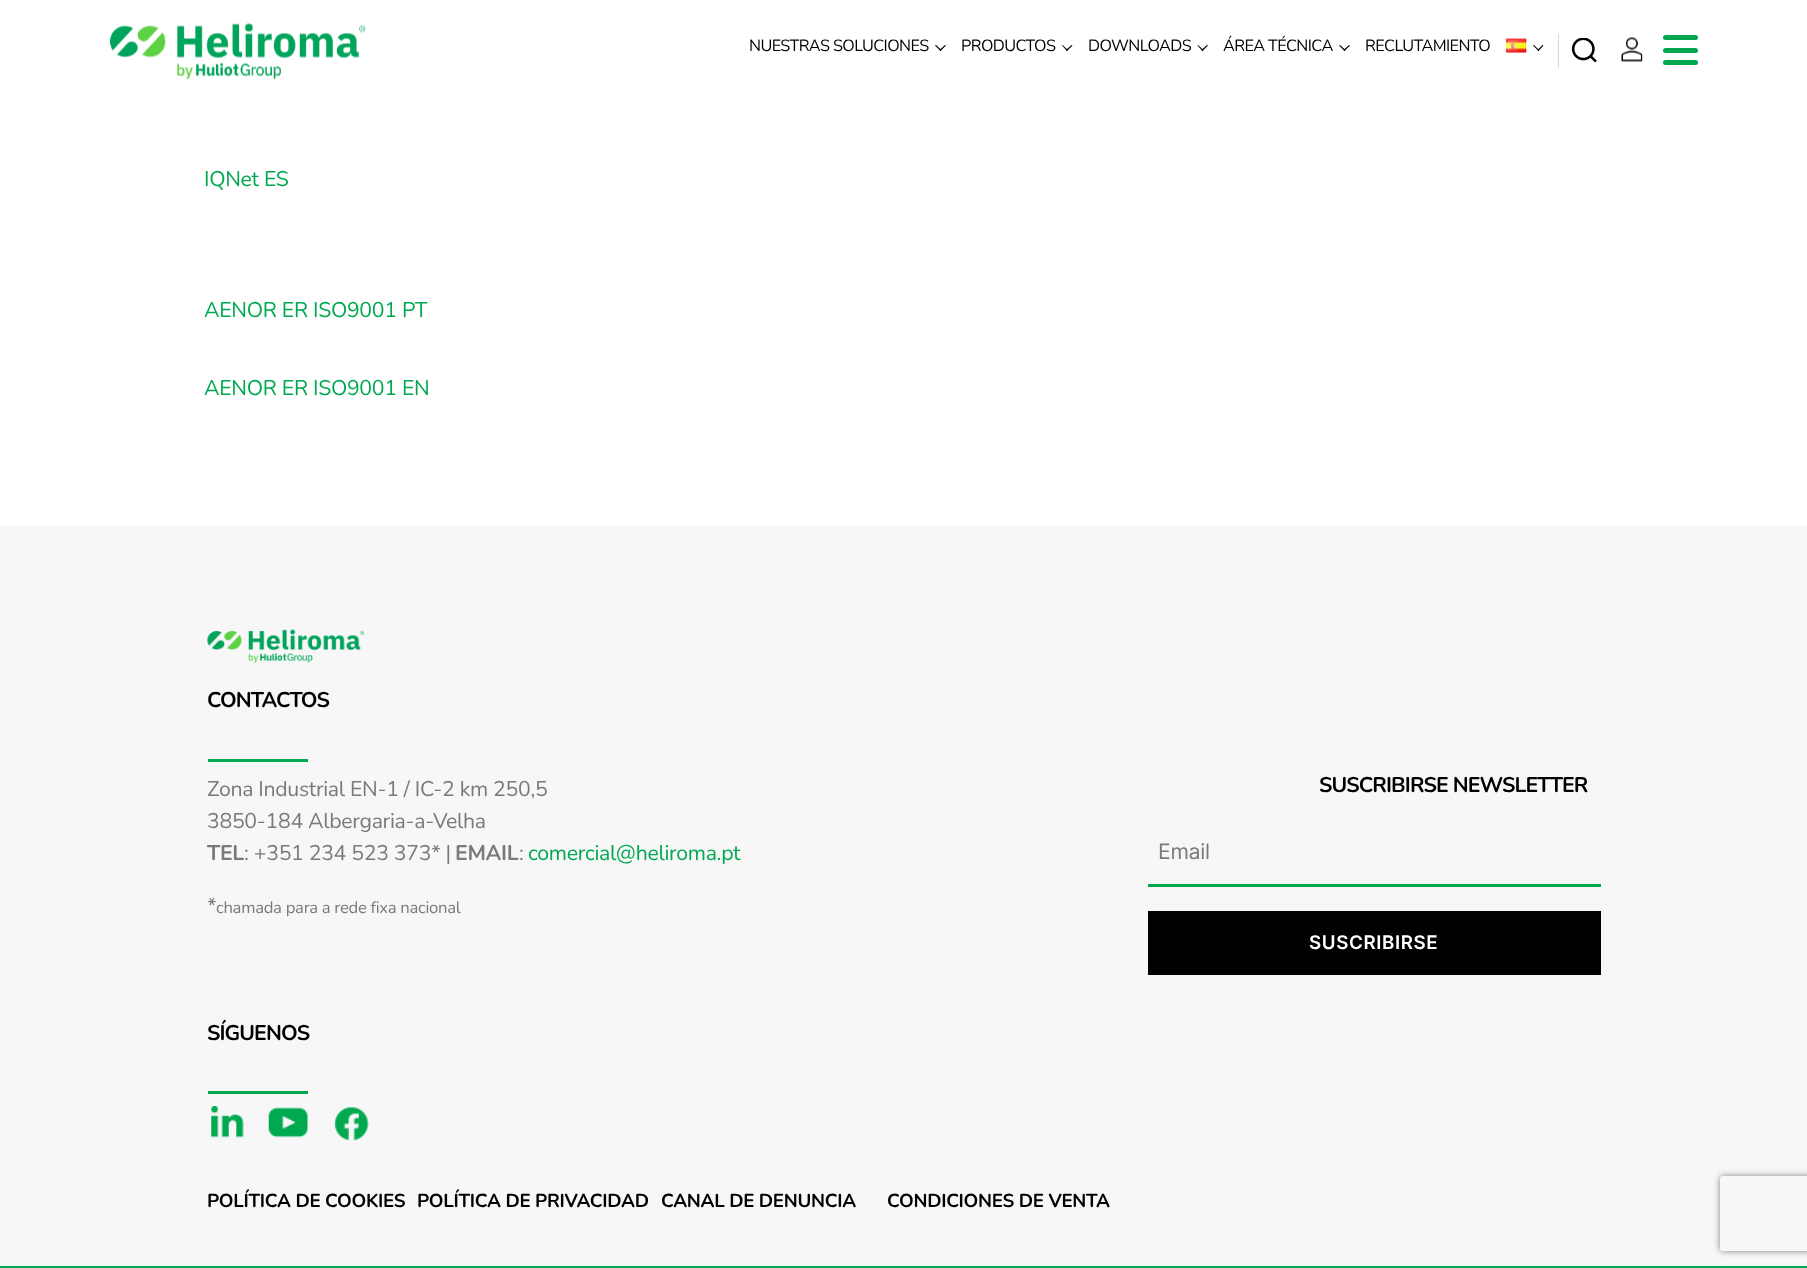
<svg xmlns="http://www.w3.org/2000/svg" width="1807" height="1268">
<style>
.a{font:16.25px Nunito;letter-spacing:-0.6px;fill:#000}
.b{font:21.25px Nunito;letter-spacing:-0.3px;fill:#00a950}
.c{font:bold 21.25px Nunito;letter-spacing:-0.9px;fill:#000}
.d{font:21.25px Nunito;letter-spacing:-0.3px;fill:#7a7a7a}
.e{font:bold 21.25px Nunito;letter-spacing:-0.3px;fill:#7a7a7a}
.f{font:16.7px Nunito;letter-spacing:-0.3px;fill:#7a7a7a}
.g{font:21.25px Inter;letter-spacing:-0.3px;fill:#7a7a7a}
.h{font:600 18.75px Inter;letter-spacing:0.6px;fill:#fff}
.i{font:bold 18.75px Nunito;letter-spacing:-0.3px;fill:#000}
</style>
<defs>
<clipPath id="clip1"><path d="M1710 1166h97v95h-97zm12.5 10h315c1.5 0 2.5 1 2.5 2.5v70c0 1.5-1 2.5-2.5 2.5h-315c-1.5 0-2.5-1-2.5-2.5v-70c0-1.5 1-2.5 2.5-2.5z" clip-rule="evenodd"/></clipPath>
</defs>
<rect width="100%" height="100%" fill="#fff"/>
<image href="1.png" x="109" y="23" width="257" height="57"/>
<path fill="#000" d="M935 45.5l1-.5l5.5 5l-1 1z"/>
<path fill="#000" d="M939.5 50l5.5-5l1 .5l-5.5 5.5z"/>
<path fill="#000" d="M1062 45.5l.5-.5l5.5 5l-1 1z"/>
<path fill="#000" d="M1066 50l5.5-5l1 .5l-5.5 5.5z"/>
<path fill="#000" d="M1197.5 45.5l.5-.5l5.5 5l-1 1z"/>
<path fill="#000" d="M1201.5 50l5.5-5l1 .5l-5.5 5.5z"/>
<path fill="#000" d="M1339 45.5l1-.5l5.5 5l-1 1z"/>
<path fill="#000" d="M1343.5 50l5.5-5l1 .5l-5.5 5.5z"/>
<image href="2.png" x="1506" y="38" width="21" height="15"/>
<path fill="#000" d="M1533 45.5l1-.5l5 5l-.5 1z"/>
<path fill="#000" d="M1537.5 50l5-5l1 .5l-5 5.5z"/>
<path fill="#dcd7ca" d="M1558 34h1v34H1558z"/>
<image href="3.png" x="1571" y="38" width="26" height="25"/>
<image href="4.png" x="1621" y="37" width="22" height="25"/>
<rect fill="#01a74f" x="1663" y="48" width="35" height="5" rx="2.5"/>
<rect fill="#01a74f" x="1663" y="35" width="35" height="5" rx="2.5"/>
<rect fill="#01a74f" x="1663" y="60" width="35" height="5" rx="2.5"/>
<path fill="#f7f7f7" d="M0 526h1807v740H0z"/>
<image href="5.png" x="207" y="629" width="158" height="34"/>
<path fill="#00a950" d="M208 759h100v3H208z"/>
<path fill="#00a950" d="M208 1091h100v3H208z"/>
<image href="6.png" x="211" y="1106" width="33" height="32"/>
<image href="7.png" x="268" y="1107" width="40" height="31"/>
<image href="8.png" x="334" y="1107" width="35" height="34"/>
<path fill="#00a950" d="M1148 884h453v3H1148z"/>
<path fill="#000" d="M1148 911h453v64H1148z"/>
<g clip-path="url(#clip1)">
<rect fill="#808080" filter="blur(3px)" x="1720" y="1176" width="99" height="75" rx="2.5"/>
</g>
<path fill="#00a950" d="M0 1266h1807v2H0z"/>
<text class="a" x="749" y="51">NUESTRAS SOLUCIONES</text>
<text class="a" x="961" y="51">PRODUCTOS</text>
<text class="a" x="1088" y="51">DOWNLOADS</text>
<text class="a" x="1223" y="51">ÁREA TÉCNICA</text>
<text class="a" x="1365" y="51">RECLUTAMIENTO</text>
<text class="b" x="204" y="186">IQNet ES</text>
<text class="b" x="204" y="317">AENOR ER ISO9001 PT</text>
<text class="b" x="204" y="395">AENOR ER ISO9001 EN</text>
<text class="c" x="207" y="707">CONTACTOS</text>
<text class="d" x="207" y="796">Zona Industrial EN-1 / IC-2 km 250,5</text>
<text class="d" x="207" y="828">3850-184 Albergaria-a-Velha</text>
<text class="e" x="207" y="860">TEL</text>
<text class="d" x="244" y="860">: +351 234 523 373* |</text>
<text class="e" x="455" y="860">EMAIL</text>
<text class="d" x="519" y="860">:</text>
<text class="b" x="528" y="860">comercial@heliroma.pt</text>
<text class="d" x="207" y="913">*</text>
<text class="f" x="216" y="913">chamada para a rede fixa nacional</text>
<text class="c" x="207" y="1040">SÍGUENOS</text>
<text class="c" x="1319" y="792">SUSCRIBIRSE NEWSLETTER</text>
<text class="g" x="1158" y="859">Email</text>
<text class="h" x="1309" y="949">SUSCRIBIRSE</text>
<text class="i" x="207" y="1207">POLÍTICA DE COOKIES</text>
<text class="i" x="417" y="1207">POLÍTICA DE PRIVACIDAD</text>
<text class="i" x="661" y="1207">CANAL DE DENUNCIA</text>
<text class="i" x="887" y="1207">CONDICIONES DE VENTA</text>
</svg>
